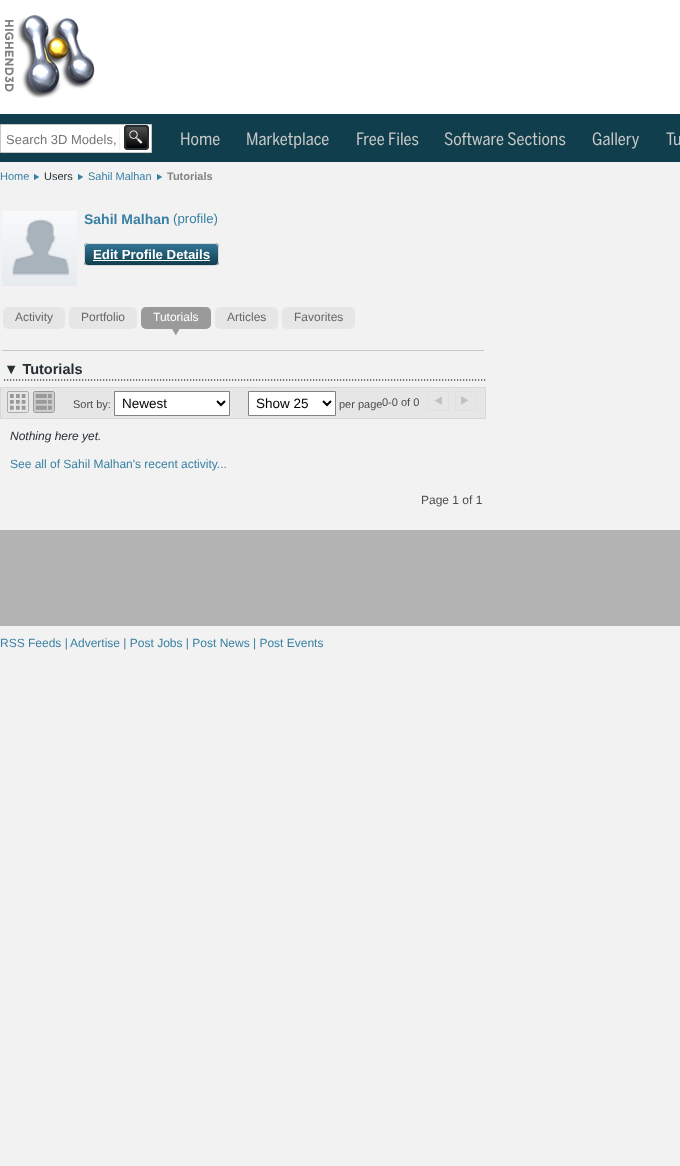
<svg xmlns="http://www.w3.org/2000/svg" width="680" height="1166">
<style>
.a{font:13px Liberation Sans;fill:#757575}
.b{font:17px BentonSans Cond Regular;fill:#c9c9c9}
.c{font:11px Liberation Sans;fill:#3980a3}
.d{font:11px Liberation Sans;fill:#242e33}
.e{font:bold 11px Liberation Sans;fill:#828282}
.f{font:bold 14px Liberation Sans;fill:#3980a3}
.g{font:13.25px Liberation Sans;fill:#3980a3}
.h{font:bold 13.25px Liberation Sans;fill:#fff}
.i{font:12px Liberation Sans;fill:#666}
.j{font:12px Liberation Sans;fill:#fff}
.k{font:bold 14.5px Liberation Sans;fill:#242e33}
.l{font:11px Liberation Sans;fill:#4d4c4d}
.m{font:13.5px Liberation Sans;fill:#000}
.n{font:italic 12px Liberation Sans;fill:#242e33}
.o{font:12px Liberation Sans;fill:#3980a3}
.p{font:12px Liberation Sans;fill:#4d4c4d}
</style>
<rect width="100%" height="100%" fill="#f2f2f2"/>
<path fill="#fff" d="M0 0h680v114H0z"/>
<image href="1.png" x="5" y="14" width="90" height="84"/>
<path fill="#103e4c" d="M0 114h680v48H0z"/>
<path fill="#fff" stroke="#c9c9c9" d="M0.5 124.5h151v28H0.5z"/>
<path fill="#f2f2f2" d="M119 129h1v21H119z"/>
<image href="2.png" x="124" y="125" width="25" height="25"/>
<rect fill="none" stroke="#242e33" stroke-width="2" x="125" y="126" width="23" height="23" rx="3"/>
<image href="3.png" x="34" y="174" width="5" height="6"/>
<image href="3.png" x="78" y="174" width="5" height="6"/>
<image href="3.png" x="157" y="174" width="5" height="6"/>
<path fill="#c9c9c9" d="M2 350h482v1H2z"/>
<image href="4.png" x="2" y="211" width="75" height="75"/>
<image href="5.png" x="84" y="243" width="135" height="22"/>
<rect fill="none" stroke="#d9d9d9" x="84.5" y="243.5" width="134" height="22" rx="3.5"/>
<path fill="#fff" d="M93 260h117v1H93z"/>
<rect fill="#e6e6e6" x="3" y="307" width="62" height="22" rx="5"/>
<rect fill="#e6e6e6" x="69" y="307" width="68" height="22" rx="5"/>
<image href="6.png" x="172" y="329" width="8" height="6"/>
<rect fill="#9a9a9a" x="141" y="307" width="70" height="22" rx="5"/>
<rect fill="#e6e6e6" x="215" y="307" width="63" height="22" rx="5"/>
<rect fill="#e6e6e6" x="282" y="307" width="73" height="22" rx="5"/>
<image href="7.png" x="4" y="379" width="482" height="2"/>
<path fill="#e6e6e6" stroke="#d9d8d9" d="M0.5 387.5h485v31H0.5z"/>
<image href="8.png" x="7" y="391" width="22" height="22"/>
<image href="9.png" x="33" y="391" width="22" height="22"/>
<path fill="#fff" stroke="#828282" d="M114.5 391.5h115v24H114.5z"/>
<path fill="none" stroke="#000" stroke-width="2" d="M217 401l4 4l4-4"/>
<path fill="#fff" stroke="#828282" d="M248.5 391.5h87v24H248.5z"/>
<path fill="none" stroke="#000" stroke-width="2" d="M323 401l4 4l4-4"/>
<image href="10.png" x="434" y="396" width="8" height="9"/>
<path fill="none" stroke="#e0e0e0" d="M428.5 391.5h20v19H428.5z"/>
<image href="11.png" x="461" y="396" width="8" height="9"/>
<path fill="none" stroke="#e0e0e0" d="M455.5 391.5h20v19H455.5z"/>
<path fill="#b3b3b3" d="M0 530h680v96H0z"/>
<text class="a" x="6" y="144">Search 3D Models,</text>
<text class="b" x="180" y="145">Home</text>
<text class="b" x="246" y="145">Marketplace</text>
<text class="b" x="356" y="145">Free Files</text>
<text class="b" x="444" y="145">Software Sections</text>
<text class="b" x="592" y="145">Gallery</text>
<text class="b" x="666" y="145">Tu</text>
<text class="c" x="0" y="180">Home</text>
<text class="d" x="44" y="180">Users</text>
<text class="c" x="88" y="180">Sahil Malhan</text>
<text class="e" x="167" y="180">Tutorials</text>
<text class="f" x="84" y="224">Sahil Malhan</text>
<text class="g" x="173" y="223">(profile)</text>
<text class="h" x="93" y="259">Edit Profile Details</text>
<text class="i" x="15" y="321">Activity</text>
<text class="i" x="81" y="321">Portfolio</text>
<text class="j" x="153" y="321">Tutorials</text>
<text class="i" x="227" y="321">Articles</text>
<text class="i" x="294" y="321">Favorites</text>
<text class="k" x="4" y="374">▼ Tutorials</text>
<text class="l" x="73" y="408">Sort by:</text>
<text class="m" x="122" y="408">Newest</text>
<text class="m" x="256" y="408">Show 25</text>
<text class="l" x="339" y="408">per page</text>
<text class="l" x="382" y="406">0-0 of 0</text>
<text class="n" x="10" y="440">Nothing here yet.</text>
<text class="o" x="10" y="468">See all of Sahil Malhan's recent activity...</text>
<text class="p" x="421" y="504">Page 1 of 1</text>
<text class="o" x="0" y="647">RSS Feeds |</text>
<text class="o" x="70" y="647">Advertise | Post Jobs | Post News | Post Events</text>
</svg>
